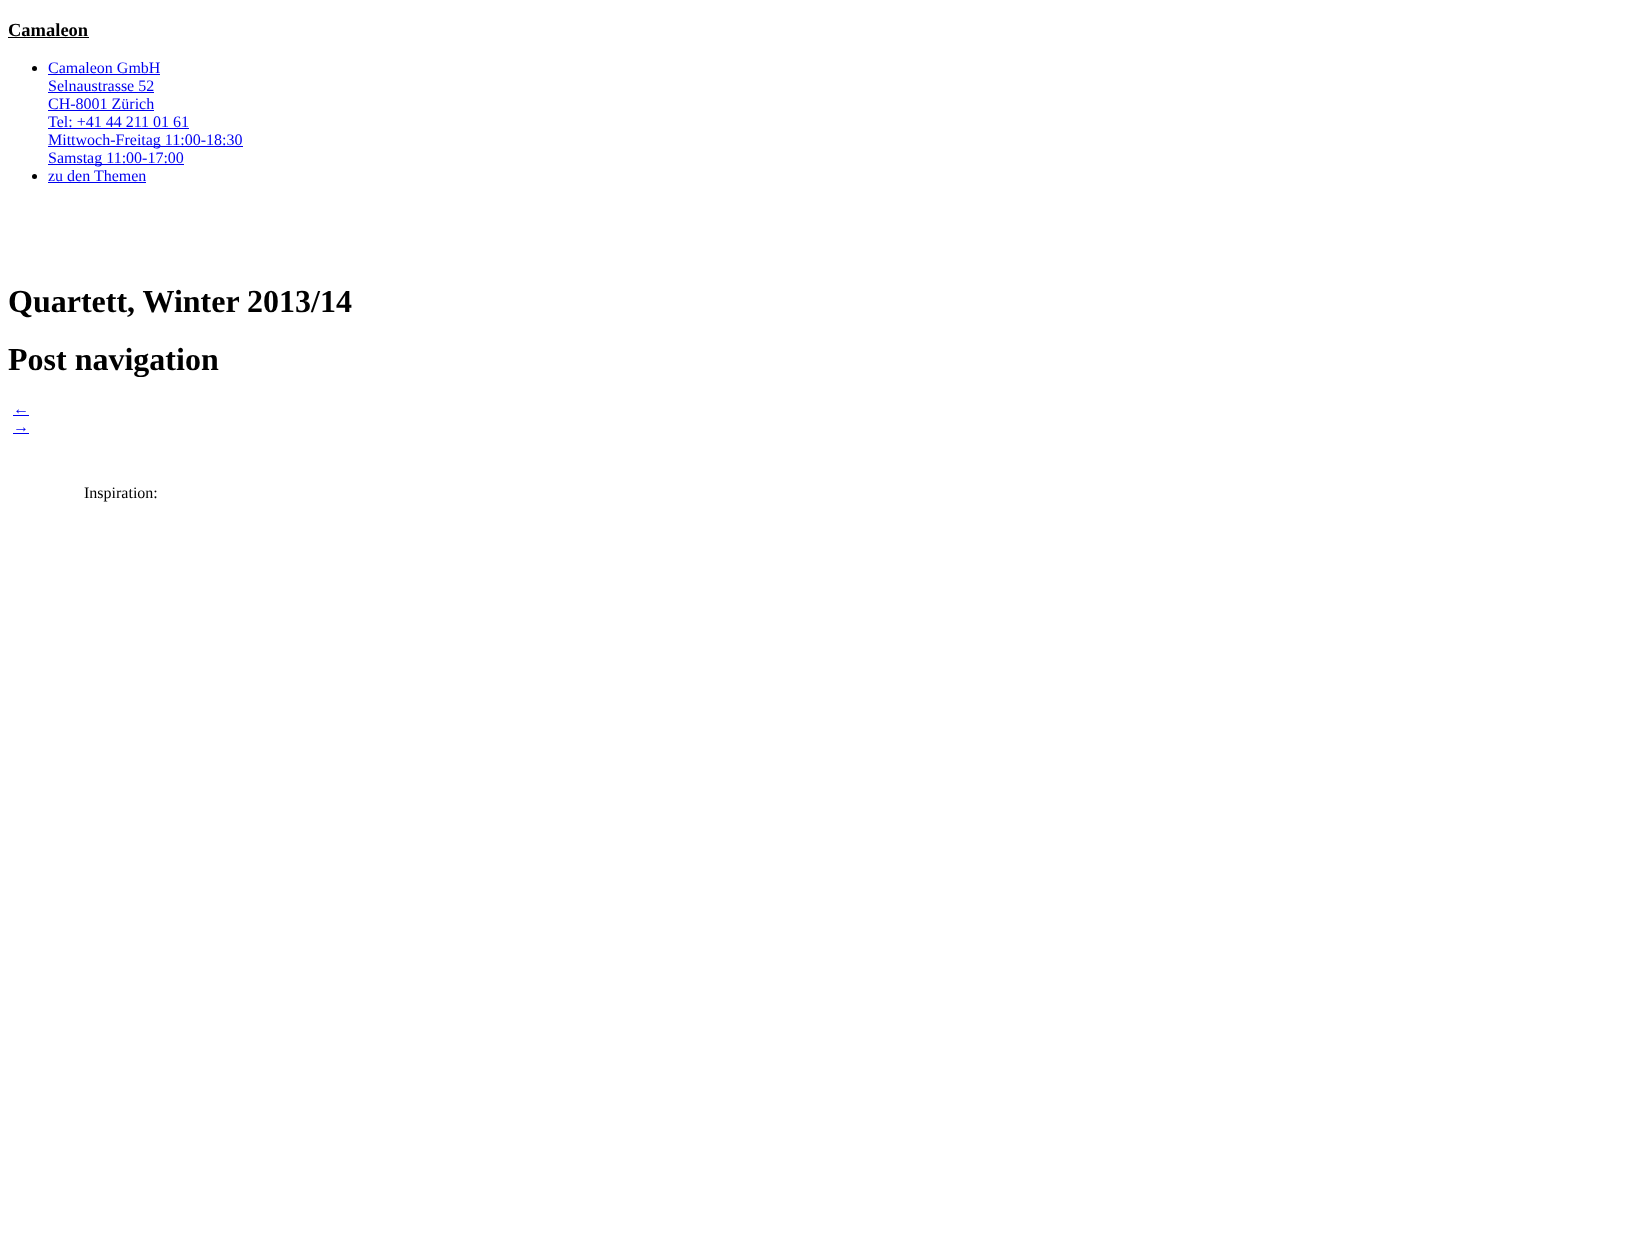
<svg xmlns="http://www.w3.org/2000/svg" width="1626" height="1252">
<style>
.a{font:bold 18.5px Liberation Serif;fill:#000}
.b{font:16px Liberation Serif;fill:#00e}
.c{font:bold 32px Liberation Serif;fill:#000}
.d{font:16px Liberation Serif;fill:#000}
</style>
<rect width="100%" height="100%" fill="#fff"/>
<path fill="#000" d="M8 37h81v1H8z"/>
<circle fill="#000" cx="34.5" cy="68.5" r="2.5"/>
<path fill="#00e" d="M48 74h112v1H48z"/>
<path fill="#00e" d="M48 92h106v1H48z"/>
<path fill="#00e" d="M48 110h106v1H48z"/>
<path fill="#00e" d="M48 128h141v1H48z"/>
<path fill="#00e" d="M48 146h195v1H48z"/>
<path fill="#00e" d="M48 164h136v1H48z"/>
<circle fill="#000" cx="34.5" cy="176.5" r="2.5"/>
<path fill="#00e" d="M48 182h98v1H48z"/>
<path fill="#00e" d="M13 415h16v1H13z"/>
<path fill="#00e" d="M13 433h16v1H13z"/>
<text class="a" x="8" y="36">Camaleon</text>
<text class="b" x="48" y="73">Camaleon GmbH</text>
<text class="b" x="48" y="91">Selnaustrasse 52</text>
<text class="b" x="48" y="109">CH-8001 Zürich</text>
<text class="b" x="48" y="127">Tel: +41 44 211 01 61</text>
<text class="b" x="48" y="145">Mittwoch-Freitag 11:00-18:30</text>
<text class="b" x="48" y="163">Samstag 11:00-17:00</text>
<text class="b" x="48" y="181">zu den Themen</text>
<text class="c" x="8" y="312">Quartett, Winter 2013/14</text>
<text class="c" x="8" y="370">Post navigation</text>
<text class="b" x="13" y="414">←</text>
<text class="b" x="13" y="432">→</text>
<text class="d" x="84" y="498">Inspiration:</text>
</svg>
